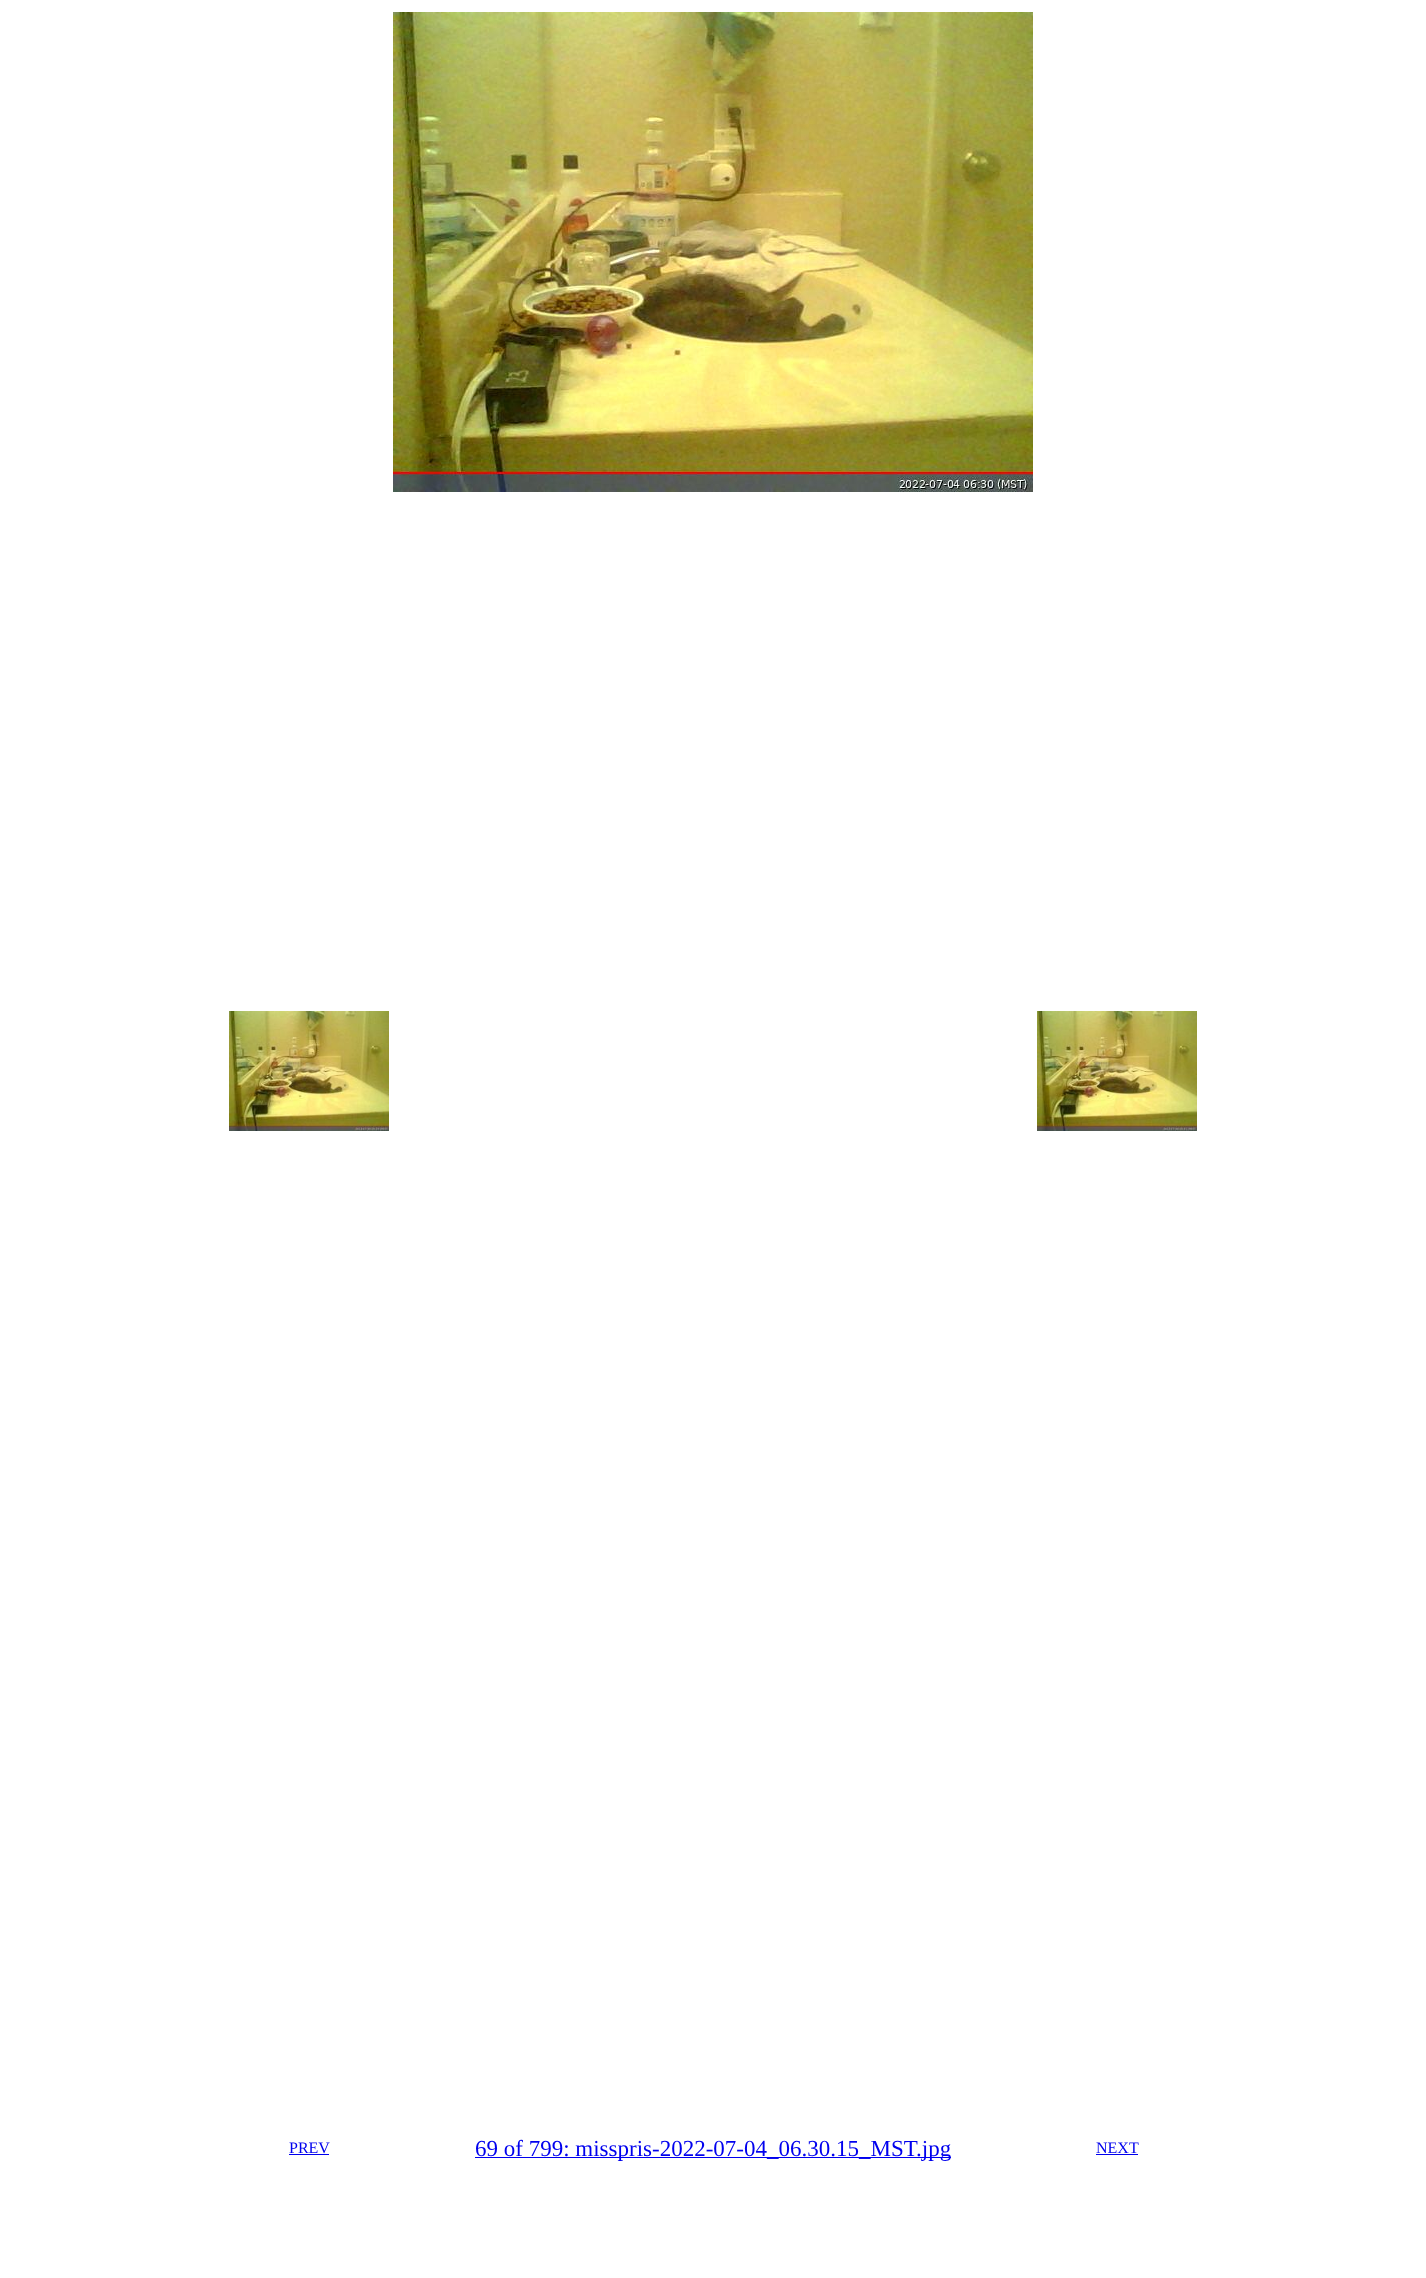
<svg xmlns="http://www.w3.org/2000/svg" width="1426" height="2278">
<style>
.a{font:16px Liberation Serif;fill:#00e}
.b{font:23px Liberation Serif;fill:#00e}
</style>
<rect width="100%" height="100%" fill="#fff"/>
<image href="1.png" x="393" y="12" width="640" height="480"/>
<image href="2.png" x="229" y="1011" width="160" height="120"/>
<image href="3.png" x="1037" y="1011" width="160" height="120"/>
<path fill="#00e" d="M289 2154h40v1H289z"/>
<path fill="#00e" d="M475 2157h476v1H475z"/>
<path fill="#00e" d="M1096 2154h42v1H1096z"/>
<text class="a" x="289" y="2153">PREV</text>
<text class="b" x="475" y="2156">69 of 799: misspris-2022-07-04_06.30.15_MST.jpg</text>
<text class="a" x="1096" y="2153">NEXT</text>
</svg>
